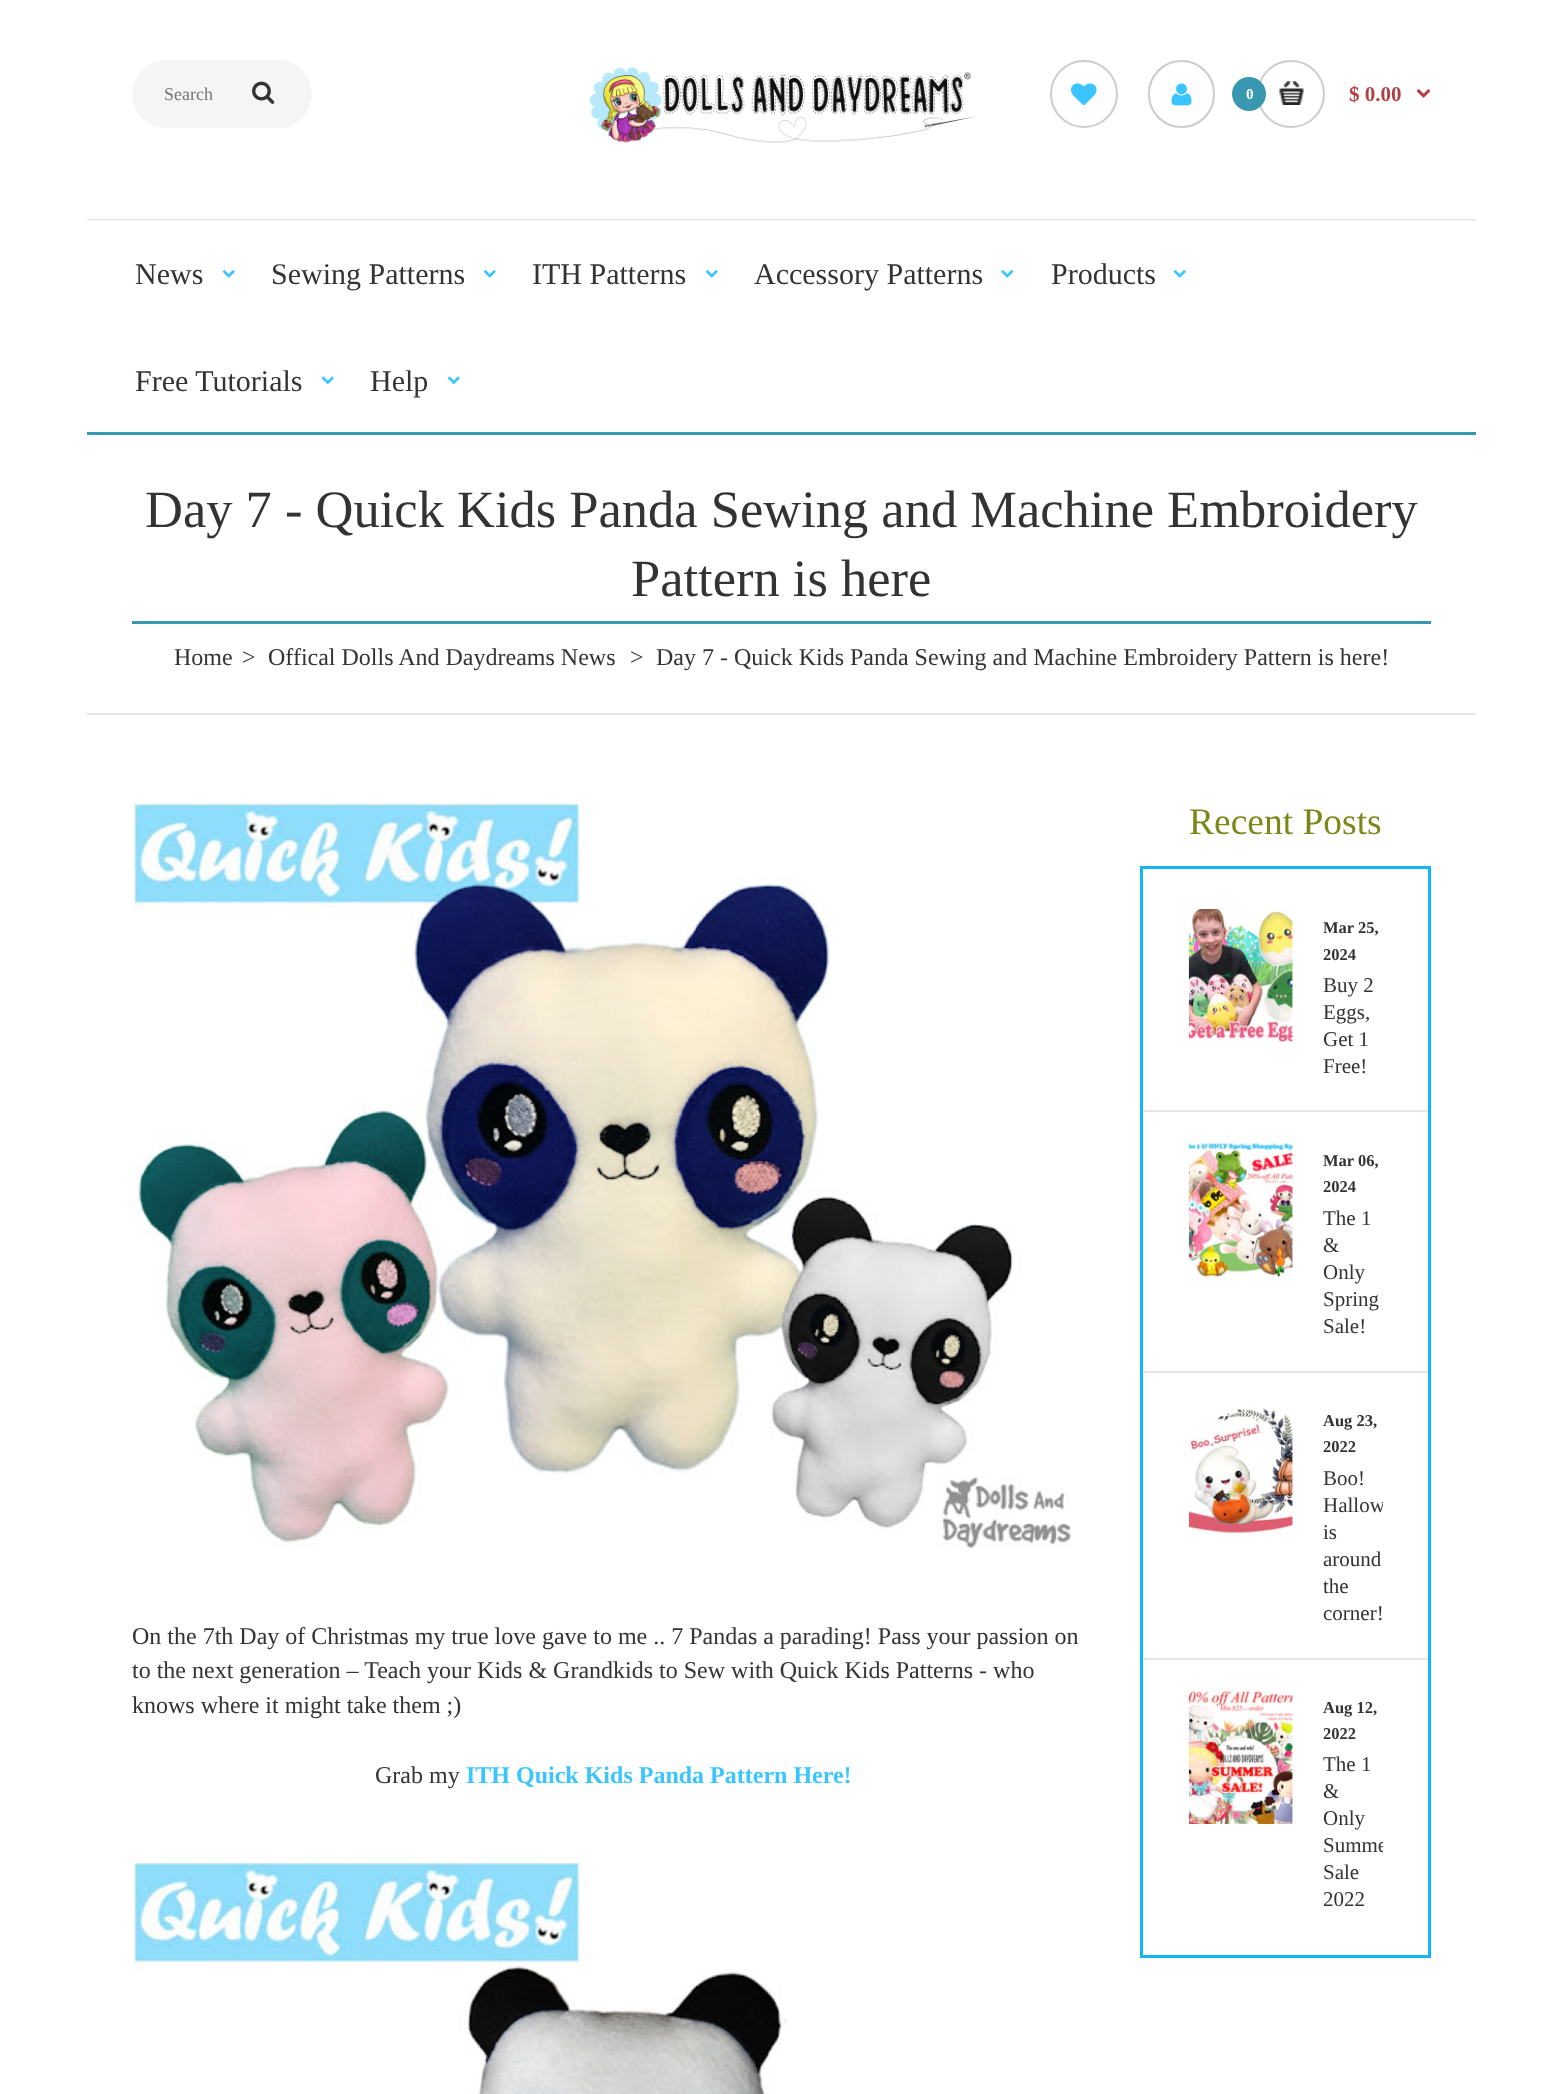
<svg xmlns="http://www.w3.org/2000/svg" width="1562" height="2094">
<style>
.a{font:18px Liberation Serif;fill:#757575}
.b{font:bold 15px Liberation Serif;fill:#fff}
.c{font:bold 21px Liberation Serif;fill:#b24043}
.d{font:30px Liberation Serif;fill:#333}
.e{font:52.5px Liberation Serif;fill:#333}
.f{font:24px Liberation Serif;fill:#333}
.g{font:bold 24px Liberation Serif;fill:#3ac5ff}
.h{font:37.5px Liberation Serif;fill:#7b8817}
.i{font:bold 16.5px Liberation Serif;fill:#333}
.j{font:21px Liberation Serif;fill:#333}
</style>
<defs>
<clipPath id="clip1"><path d="M1323 1403h60v225H1323z"/></clipPath>
<clipPath id="clip2"><path d="M1323 1689h60v225H1323z"/></clipPath>
</defs>
<rect width="100%" height="100%" fill="#fff"/>
<rect fill="#f5f5f5" x="132" y="60" width="180" height="68" rx="34"/>
<image href="1.png" x="252" y="81" width="23" height="23"/>
<image href="2.png" x="589" y="66" width="385" height="77"/>
<circle fill="none" stroke="#ccc" stroke-width="2" cx="1084" cy="94" r="33"/>
<image href="3.png" x="1071" y="83" width="26" height="23"/>
<rect fill="none" stroke="#ccc" stroke-width="2" x="1149" y="61" width="65" height="66" rx="32.5"/>
<image href="4.png" x="1171" y="83" width="21" height="23"/>
<circle fill="none" stroke="#ccc" stroke-width="2" cx="1291" cy="94" r="33"/>
<circle fill="#3898af" cx="1249" cy="94" r="17"/>
<image href="5.png" x="1279" y="81" width="25" height="24"/>
<image href="6.png" x="1416" y="89" width="15" height="9"/>
<path fill="#3898af" d="M87 432h1389v3H87z"/>
<image href="7.png" x="87" y="219" width="1389" height="2"/>
<image href="8.png" x="222" y="270" width="13" height="8"/>
<image href="8.png" x="483" y="270" width="13" height="8"/>
<image href="8.png" x="705" y="270" width="13" height="8"/>
<image href="9.png" x="1001" y="270" width="13" height="8"/>
<image href="8.png" x="1173" y="270" width="13" height="8"/>
<image href="10.png" x="321" y="376" width="13" height="9"/>
<image href="10.png" x="447" y="376" width="13" height="9"/>
<path fill="#e5e5e5" d="M87 713h1389v2H87z"/>
<path fill="#3898af" d="M132 621h1299v3H132z"/>
<image href="11.png" x="133" y="804" width="939" height="745"/>
<image href="12.png" x="133" y="1863" width="654" height="231"/>
<path fill="none" stroke="#13b5f8" stroke-width="3" d="M1141.5 867.5h288v1089H1141.5z"/>
<image href="13.png" x="1188" y="909" width="105" height="134"/>
<path fill="#e6e6e6" d="M1143 1110h285v2H1143z"/>
<image href="14.png" x="1188" y="1142" width="105" height="135"/>
<path fill="#e6e6e6" d="M1143 1371h285v2H1143z"/>
<image href="15.png" x="1188" y="1407" width="105" height="128"/>
<path fill="#e6e6e6" d="M1143 1658h285v2H1143z"/>
<image href="16.png" x="1188" y="1689" width="105" height="135"/>
<text class="a" x="164" y="100">Search</text>
<text class="b" x="1246" y="99">0</text>
<text class="c" x="1349" y="101">$ 0.00</text>
<text class="d" x="135" y="284">News</text>
<text class="d" x="271" y="284">Sewing Patterns</text>
<text class="d" x="532" y="284">ITH Patterns</text>
<text class="d" x="754" y="284">Accessory Patterns</text>
<text class="d" x="1051" y="284">Products</text>
<text class="d" x="135" y="391">Free Tutorials</text>
<text class="d" x="370" y="391">Help</text>
<text class="e" x="145" y="527">Day 7 - Quick Kids Panda Sewing and Machine Embroidery</text>
<text class="e" x="631" y="596">Pattern is here</text>
<text class="f" x="174" y="665">Home</text>
<text class="f" x="242" y="665">&gt;</text>
<text class="f" x="268" y="665">Offical Dolls And Daydreams News</text>
<text class="f" x="630" y="665">&gt;</text>
<text class="f" x="656" y="665">Day 7 - Quick Kids Panda Sewing and Machine Embroidery Pattern is here!</text>
<text class="f" x="132" y="1644">On the 7th Day of Christmas my true love gave to me .. 7 Pandas a parading! Pass your passion on</text>
<text class="f" x="132" y="1678">to the next generation – Teach your Kids &amp; Grandkids to Sew with Quick Kids Patterns - who</text>
<text class="f" x="132" y="1713">knows where it might take them ;)</text>
<text class="f" x="375" y="1783">Grab my</text>
<text class="g" x="466" y="1783">ITH Quick Kids Panda Pattern Here!</text>
<text class="h" x="1189" y="834">Recent Posts</text>
<text class="i" x="1323" y="933">Mar 25,</text>
<text class="i" x="1323" y="960">2024</text>
<text class="j" x="1323" y="992">Buy 2</text>
<text class="j" x="1323" y="1019">Eggs,</text>
<text class="j" x="1323" y="1046">Get 1</text>
<text class="j" x="1323" y="1073">Free!</text>
<text class="i" x="1323" y="1166">Mar 06,</text>
<text class="i" x="1323" y="1192">2024</text>
<text class="j" x="1323" y="1225">The 1</text>
<text class="j" x="1323" y="1252">&amp;</text>
<text class="j" x="1323" y="1279">Only</text>
<text class="j" x="1323" y="1306">Spring</text>
<text class="j" x="1323" y="1333">Sale!</text>
<text class="i" x="1323" y="1426">Aug 23,</text>
<text class="i" x="1323" y="1452">2022</text>
<text class="j" x="1323" y="1485">Boo!</text>
<g clip-path="url(#clip1)">
<text class="j" x="1323" y="1512">Hallow</text>
</g>
<text class="j" x="1323" y="1539">is</text>
<text class="j" x="1323" y="1566">around</text>
<text class="j" x="1323" y="1593">the</text>
<text class="j" x="1323" y="1620">corner!</text>
<text class="i" x="1323" y="1713">Aug 12,</text>
<text class="i" x="1323" y="1739">2022</text>
<text class="j" x="1323" y="1771">The 1</text>
<text class="j" x="1323" y="1798">&amp;</text>
<text class="j" x="1323" y="1825">Only</text>
<g clip-path="url(#clip2)">
<text class="j" x="1323" y="1852">Summe</text>
</g>
<text class="j" x="1323" y="1879">Sale</text>
<text class="j" x="1323" y="1906">2022</text>
</svg>
